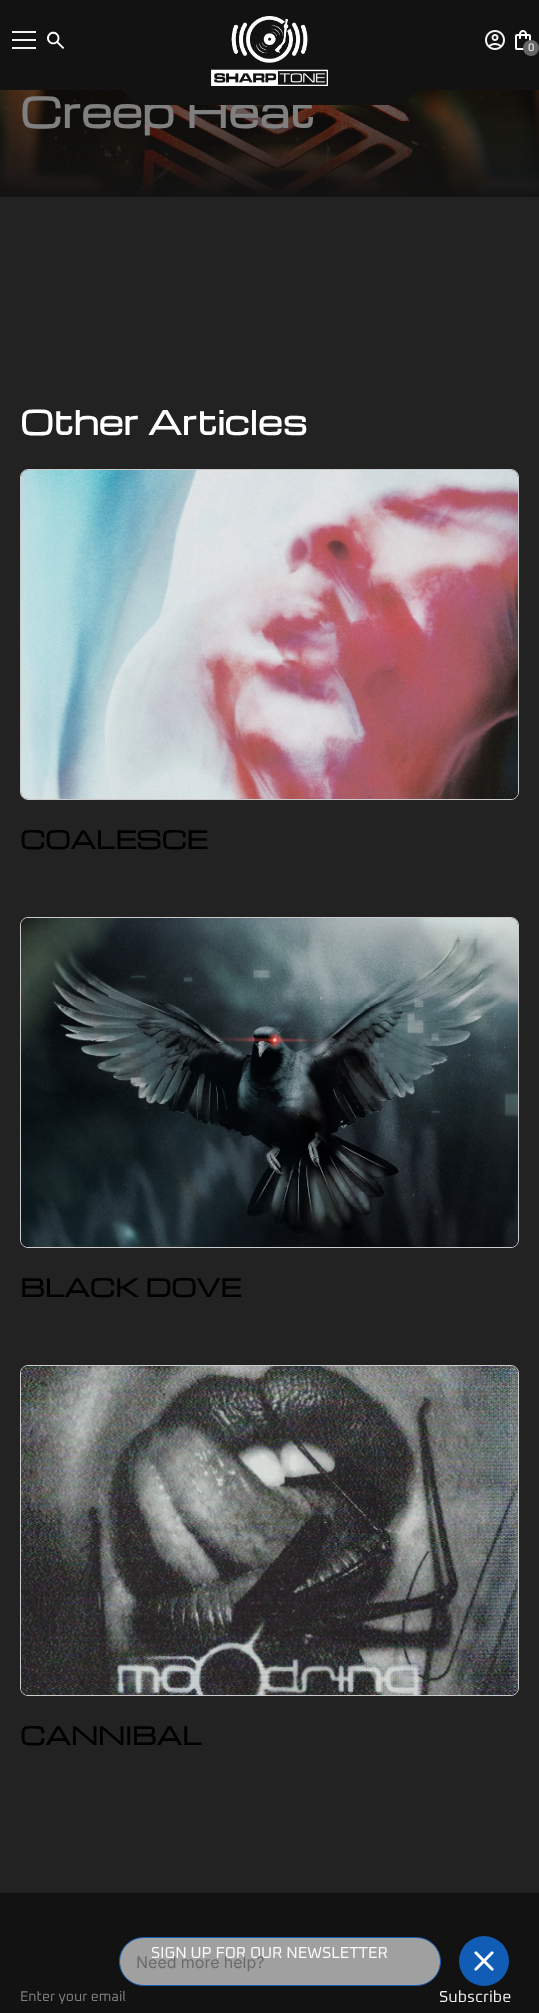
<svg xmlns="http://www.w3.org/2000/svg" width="539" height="2013">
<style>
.a{font:bold 40px Michroma;fill:#808080}
.b{font:11px Oxanium;fill:#fff}
.c{font:bold 32px Michroma;fill:#fff}
.d{font:bold 24px Michroma;fill:#000}
.e{font:16px Oxanium;fill:#f3f3f3}
.f{font:14px Oxanium;fill:#808080}
</style>
<rect width="100%" height="100%" fill="#222"/>
<image href="5.png" x="0" y="90" width="539" height="107"/>
<rect fill="none" stroke="#ccc" x="20.5" y="469.5" width="498" height="330" rx="7.5"/>
<image href="6.png" x="21" y="470" width="497" height="329"/>
<rect fill="none" stroke="#ccc" x="20.5" y="917.5" width="498" height="330" rx="7.5"/>
<image href="7.png" x="21" y="918" width="497" height="329"/>
<rect fill="none" stroke="#ccc" x="20.5" y="1365.5" width="498" height="330" rx="7.5"/>
<image href="8.png" x="21" y="1366" width="497" height="329"/>
<path fill="#121212" d="M0 1893h539v120H0z"/>
<text class="a" x="20" y="128">Creep Heat</text>
<path fill="#121212" d="M106.5 75h29.5v29.5z"/>
<path fill="#121212" d="M135 90h269v15H135z"/>
<path fill="#121212" d="M403 104v-29.5h29.5z"/>
<path fill="#121212" d="M0 0h539v90H0z"/>
<image href="4.png" x="515" y="30" width="16" height="20"/>
<circle fill="#666" cx="531" cy="48" r="8"/>
<text class="b" x="528" y="51">0</text>
<image href="2.png" x="211" y="16" width="117" height="70"/>
<image href="1.png" x="47" y="31" width="18" height="18"/>
<path fill="#f3f3f3" d="M12 47h24v2H12z"/>
<path fill="#f3f3f3" d="M12 39h24v2H12z"/>
<path fill="#f3f3f3" d="M12 31h24v2H12z"/>
<image href="3.png" x="485" y="30" width="20" height="20"/>
<text class="c" x="20" y="435">Other Articles</text>
<text class="d" x="20" y="849">COALESCE</text>
<text class="d" x="20" y="1297">BLACK DOVE</text>
<text class="d" x="20" y="1745">CANNIBAL</text>
<text class="e" x="151" y="1958">SIGN UP FOR OUR NEWSLETTER</text>
<text class="f" x="20" y="2001">Enter your email</text>
<text class="e" x="439" y="2002">Subscribe</text>
<image href="9.png" x="119" y="1936" width="390" height="50"/>
</svg>
